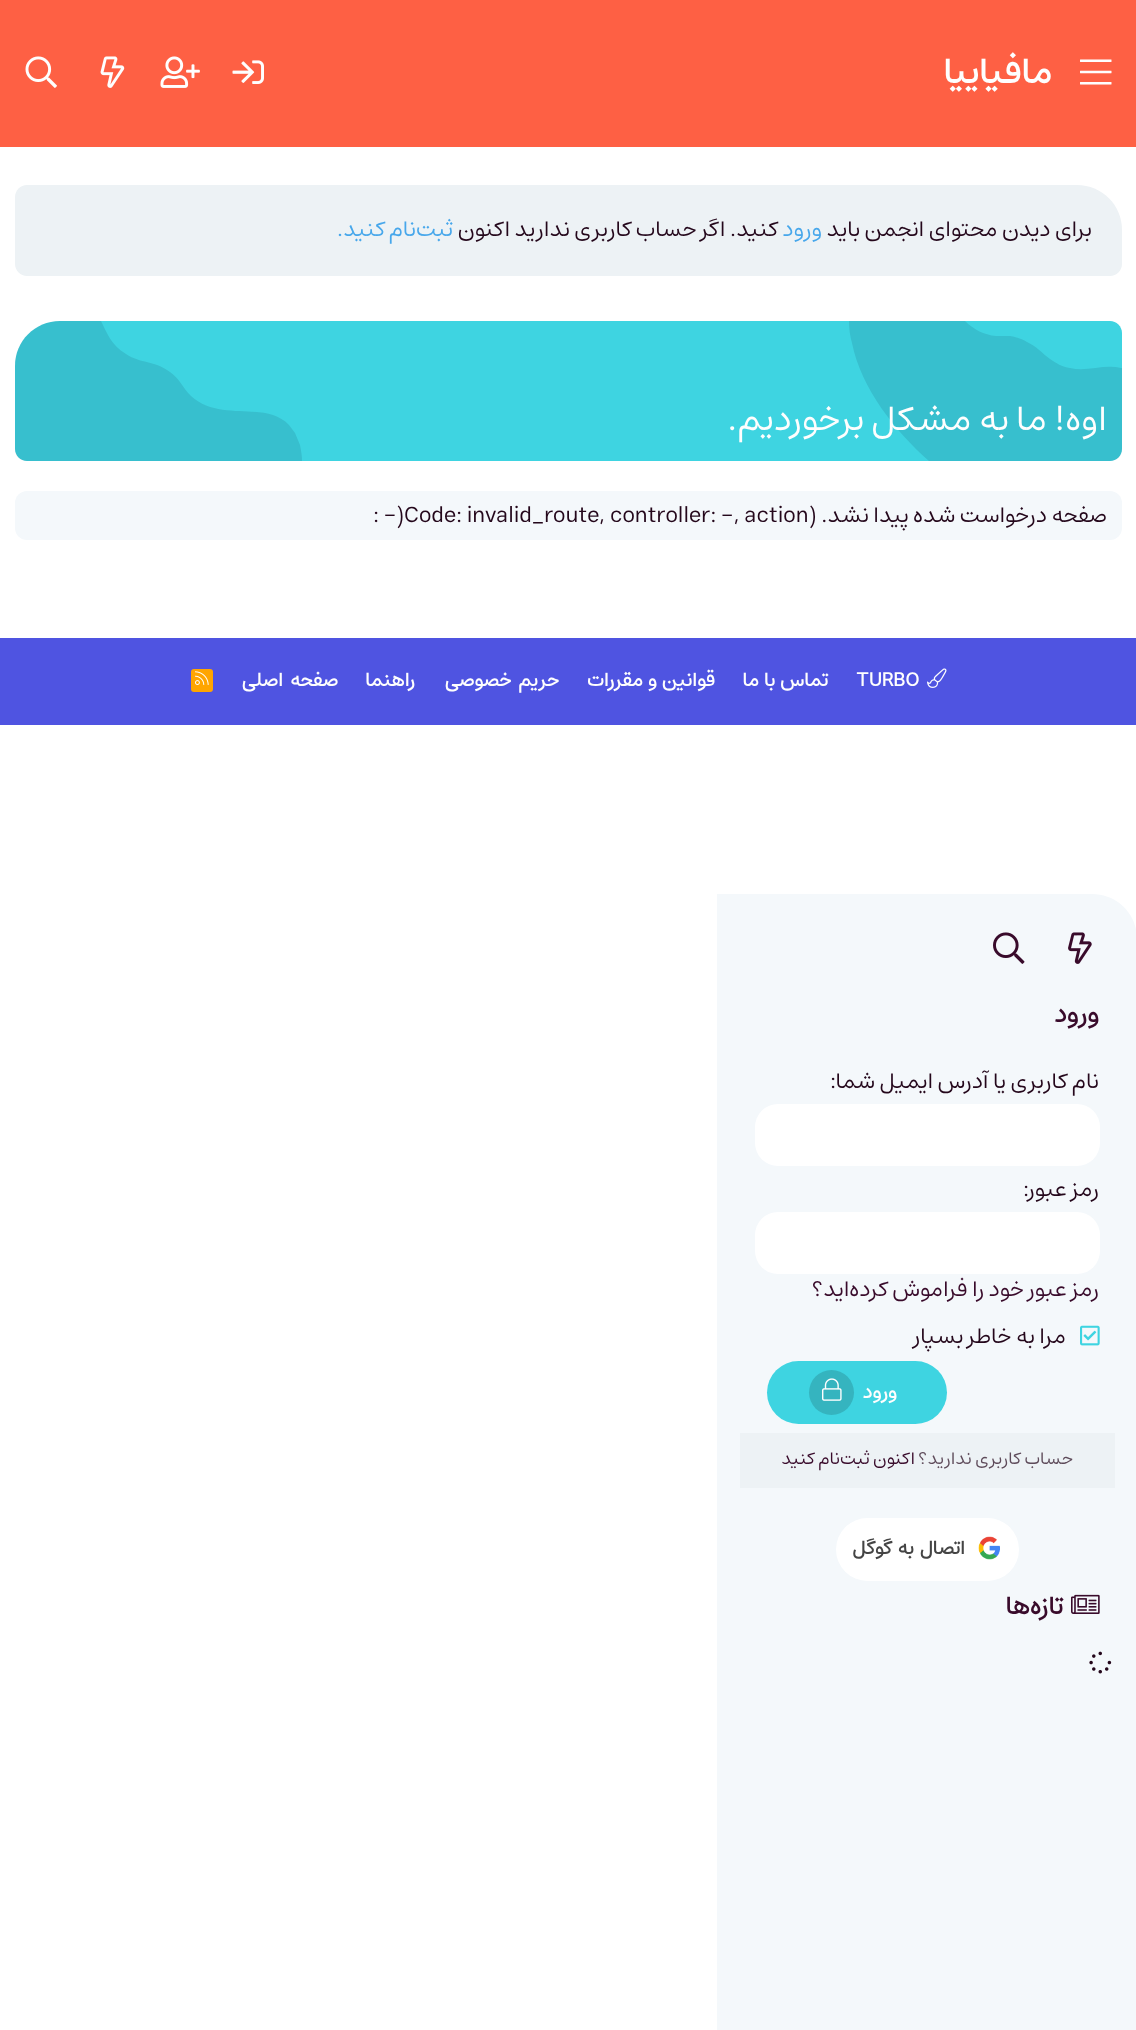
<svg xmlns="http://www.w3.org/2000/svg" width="1136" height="2030">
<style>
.a{font:bold 36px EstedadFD;direction:rtl;fill:#fefefe}
.b{font:22.5px EstedadFD;direction:rtl;fill:#24071b}
.c{font:22.5px EstedadFD;direction:rtl;fill:#47a7eb}
.d{font:36px EstedadFD;direction:rtl;fill:#fefefe}
.e{font:22.5px EstedadFD;fill:#24071b}
.f{font:bold 19.5px EstedadFD;fill:#fefefe}
.g{font:bold 19.5px EstedadFD;direction:rtl;fill:#fefefe}
.h{font:bold 25.5px EstedadFD;direction:rtl;fill:#390b2b}
.i{font:22.5px EstedadFD;direction:rtl;fill:#390b2b}
.j{font:18px EstedadFD;direction:rtl;fill:#5e4b5a}
.k{font:18px EstedadFD;direction:rtl;fill:#390b2b}
.l{font:bold 19.5px EstedadFD;direction:rtl;fill:#444}
</style>
<rect width="100%" height="100%" fill="#fff"/>
<path fill="#fe6044" d="M0 0h1136v147H0z"/>
<image href="1.png" x="1080" y="59" width="32" height="26"/>
<image href="2.png" x="232" y="60" width="32" height="24"/>
<image href="3.png" x="160" y="56" width="40" height="32"/>
<image href="4.png" x="100" y="56" width="25" height="32"/>
<image href="5.png" x="25" y="56" width="32" height="32"/>
<path fill="#edf2f5" d="M27 185h1050c25 0 45 20 45 45v34c0 6.5-5.5 12-12 12h-1083c-6.5 0-12-5.5-12-12v-67c0-6.5 5.5-12 12-12z"/>
<path fill="#3ed4e1" d="M60 321h1050c6.5 0 12 5.5 12 12v116c0 6.5-5.5 12-12 12h-1083c-6.5 0-12-5.5-12-12v-83c0-25 20-45 45-45z"/>
<path fill="#0405261a" d="M1121 368h1v81c0 7-5 12-12 12h-181c-34-30-68-73-77-118c-2-7-3-14-3-22h116c8 8 19 14 31 15h14c6 1 12 3 17 6c9 4 15 11 23 17c6 4 12 8 20 9c17 4 34-4 51 0z"/>
<path fill="#0405261a" d="M60 321h41c6 12 10 24 25 33c15 10 28 6 44 18c10 7 12 15 21 24c30 27 74 4 98 29c2 3 4 5 6 8l5 12c1 5 2 11 2 16h-275c-7 0-12-5-12-12v-83c0-25 20-45 45-45z"/>
<rect fill="#f4f8fb" x="15" y="491" width="1107" height="49" rx="12"/>
<path fill="#4f54e1" d="M0 638h1136v87H0z"/>
<image href="6.png" x="927" y="668" width="20" height="20"/>
<rect fill="#ffa500" x="191" y="669" width="22" height="23" rx="3"/>
<image href="7.png" x="195" y="671" width="14" height="14"/>
<path fill="#f4f8fb" d="M717 894h375c25 0 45 20 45 45v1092h-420z"/>
<image href="8.png" x="1068" y="932" width="24" height="32"/>
<image href="9.png" x="993" y="932" width="32" height="32"/>
<rect fill="#fff" x="755" y="1104" width="345" height="62" rx="23"/>
<rect fill="#fff" x="755" y="1212" width="345" height="62" rx="23"/>
<image href="10.png" x="1080" y="1325" width="20" height="21"/>
<rect fill="#3ed4e1" x="767" y="1361" width="180" height="63" rx="31.5"/>
<circle fill="#35b4bf" cx="831.5" cy="1392.5" r="22.5"/>
<image href="11.png" x="822" y="1378" width="20" height="23"/>
<path fill="#edf2f5" d="M740 1433h375v55H740z"/>
<rect fill="#fff" x="836" y="1518" width="183" height="63" rx="31.5"/>
<image href="12.png" x="978" y="1536" width="22" height="24"/>
<image href="13.png" x="1071" y="1594" width="29" height="20"/>
<image href="14.png" x="1089" y="1651" width="23" height="23"/>
<text class="a" x="1052" y="83">مافیاییا</text>
<text class="b" x="1092" y="236">برای دیدن محتوای انجمن باید</text>
<text class="c" x="822" y="236">ورود</text>
<text class="b" x="778" y="236">کنید. اگر حساب کاربری ندارید اکنون</text>
<text class="c" x="453" y="236">ثبت‌نام</text>
<text class="c" x="385" y="236">کنید.</text>
<text class="d" x="1107" y="430">اوه! ما به مشکل برخوردیم.</text>
<text class="b" x="1107" y="522">صفحه درخواست شده پیدا نشد. (</text>
<text class="e" x="373" y="522">: -)Code: invalid_route, controller: -, action</text>
<text class="f" x="856" y="686">TURBO</text>
<text class="g" x="828" y="686" word-spacing="1">تماس با ما</text>
<text class="g" x="715" y="686" word-spacing="1">قوانین و مقررات</text>
<text class="g" x="559" y="686" word-spacing="3">حریم خصوصی</text>
<text class="g" x="415" y="686">راهنما</text>
<text class="g" x="338" y="686" word-spacing="3">صفحه اصلی</text>
<text class="h" x="1099" y="1022">ورود</text>
<text class="b" x="1099" y="1088">نام کاربری یا آدرس ایمیل شما</text>
<text class="e" x="830" y="1088">:</text>
<text class="b" x="1099" y="1196">رمز عبور</text>
<text class="e" x="1023" y="1196">:</text>
<text class="i" x="1099" y="1296">رمز عبور خود را فراموش کرده‌اید؟</text>
<text class="b" x="1066" y="1343">مرا به خاطر بسپار</text>
<text class="g" x="897" y="1398">ورود</text>
<text class="j" x="1073" y="1464">حساب کاربری ندارید؟</text>
<text class="k" x="915" y="1464">اکنون ثبت‌نام کنید</text>
<text class="l" x="965" y="1554" word-spacing="2">اتصال به گوگل</text>
<text class="h" x="1063" y="1614">تازه‌ها</text>
</svg>
